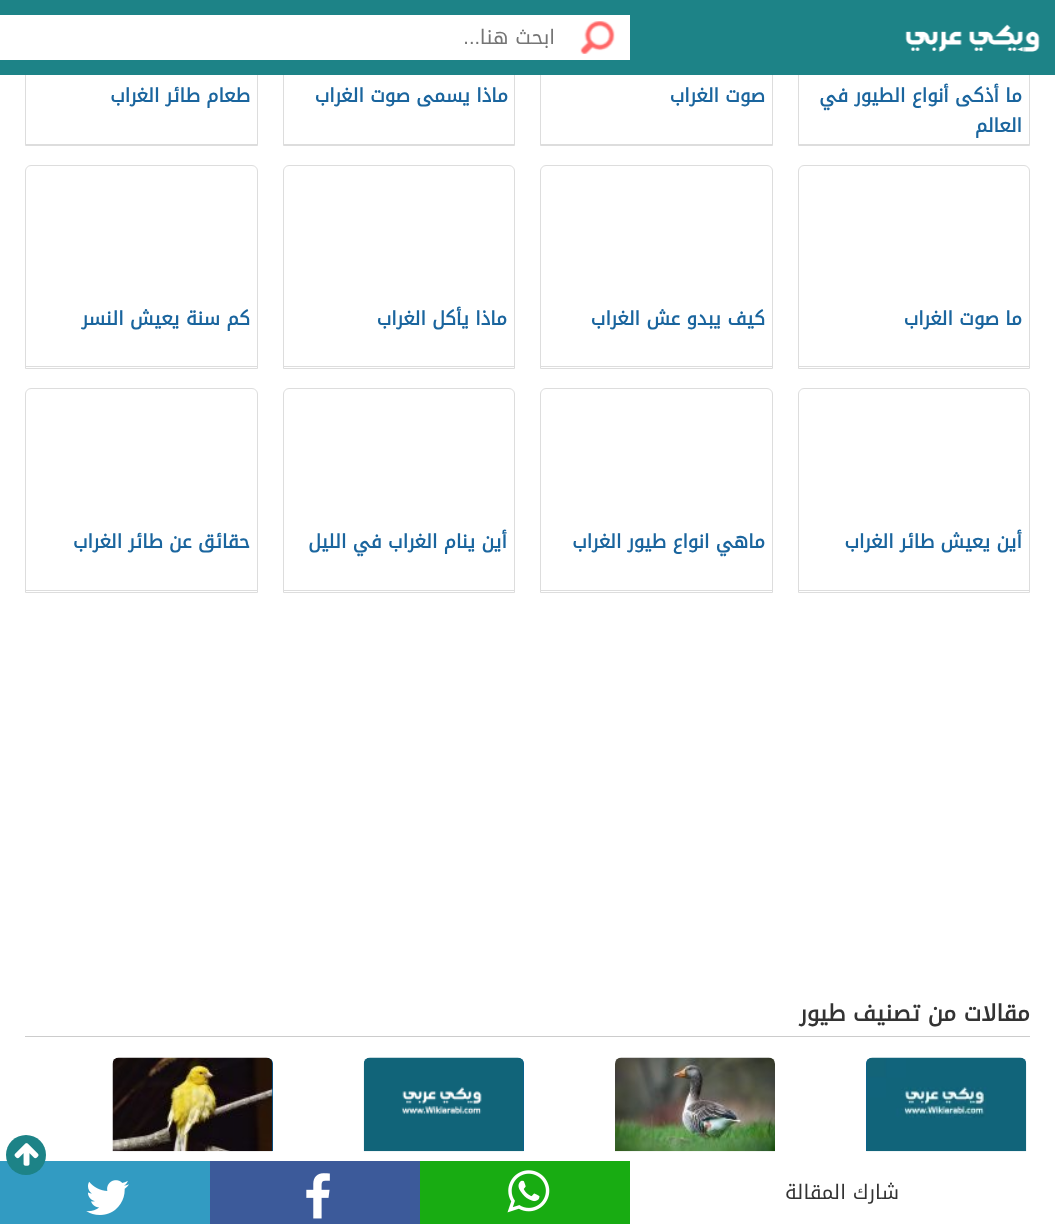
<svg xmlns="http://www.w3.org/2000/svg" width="1055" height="1224">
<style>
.a{font:20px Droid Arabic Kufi;direction:rtl;fill:#757575}
.b{font:20px Liberation Sans;direction:rtl;fill:#757575}
.c{font:bold 18.75px Droid Arabic Kufi;direction:rtl;fill:#1a659e}
.d{font:20px Droid Arabic Kufi;direction:rtl;fill:#333}
.e{font:bold 22.5px Droid Arabic Kufi;direction:rtl;fill:#333}
</style>
<rect width="100%" height="100%" fill="#fff"/>
<path fill="none" stroke="#ddd" d="M798.5 -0.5h231v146H798.5z"/>
<path fill="none" stroke="#ddd" d="M540.5 -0.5h232v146H540.5z"/>
<path fill="none" stroke="#ddd" d="M283.5 -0.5h231v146H283.5z"/>
<path fill="none" stroke="#ddd" d="M25.5 -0.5h232v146H25.5z"/>
<path fill="#1d8387" d="M0 0h1055v75H0z"/>
<image href="1.png" x="905" y="24" width="135" height="28"/>
<path fill="#fff" d="M0 15h630v45H0z"/>
<image href="2.png" x="580" y="21" width="35" height="33"/>
<path fill="#ddd" d="M798 144h232v1H798z"/>
<path fill="#ddd" d="M540 144h233v1H540z"/>
<path fill="#ddd" d="M283 144h232v1H283z"/>
<path fill="#ddd" d="M25 144h233v1H25z"/>
<path fill="none" stroke="#ddd" d="M804 165.5h220c3 0 5.5 2.5 5.5 5.5v197.5h-231v-197.5c0-3 2.5-5.5 5.5-5.5z"/>
<path fill="#ddd" d="M798 366h232v1H798z"/>
<path fill="none" stroke="#ddd" d="M546 165.5h221c3 0 5.5 2.5 5.5 5.5v197.5h-232v-197.5c0-3 2.5-5.5 5.5-5.5z"/>
<path fill="#ddd" d="M540 366h233v1H540z"/>
<path fill="none" stroke="#ddd" d="M289 165.5h220c3 0 5.5 2.5 5.5 5.5v197.5h-231v-197.5c0-3 2.5-5.5 5.5-5.5z"/>
<path fill="#ddd" d="M283 366h232v1H283z"/>
<path fill="none" stroke="#ddd" d="M31 165.5h221c3 0 5.5 2.5 5.5 5.5v197.5h-232v-197.5c0-3 2.5-5.5 5.5-5.5z"/>
<path fill="#ddd" d="M25 366h233v1H25z"/>
<path fill="none" stroke="#ddd" d="M804 388.5h220c3 0 5.5 2.5 5.5 5.5v198.5h-231v-198.5c0-3 2.5-5.5 5.5-5.5z"/>
<path fill="#ddd" d="M798 590h232v1H798z"/>
<path fill="none" stroke="#ddd" d="M546 388.5h221c3 0 5.5 2.5 5.5 5.5v198.5h-232v-198.5c0-3 2.5-5.5 5.5-5.5z"/>
<path fill="#ddd" d="M540 590h233v1H540z"/>
<path fill="none" stroke="#ddd" d="M289 388.5h220c3 0 5.5 2.5 5.5 5.5v198.5h-231v-198.5c0-3 2.5-5.5 5.5-5.5z"/>
<path fill="#ddd" d="M283 590h232v1H283z"/>
<path fill="none" stroke="#ddd" d="M31 388.5h221c3 0 5.5 2.5 5.5 5.5v198.5h-232v-198.5c0-3 2.5-5.5 5.5-5.5z"/>
<path fill="#ddd" d="M25 590h233v1H25z"/>
<path fill="#18ac12" d="M420 1161h210v63H420z"/>
<image href="3.png" x="507" y="1170" width="43" height="43"/>
<path fill="#3c5a9a" d="M210 1161h210v63H210z"/>
<image href="4.png" x="306" y="1173" width="24" height="46"/>
<path fill="#329bc2" d="M0 1161h210v63H0z"/>
<image href="5.png" x="86" y="1180" width="43" height="35"/>
<path fill="#ccc" d="M25 1036h1005v1H25z"/>
<path fill="#005fa3" d="M872 1058h148c3.5 0 6 2.5 6 6v87h-160v-87c0-3.5 2.5-6 6-6z"/>
<image href="6.png" x="866" y="1057" width="161" height="95"/>
<image href="7.png" x="615" y="1057" width="160" height="95"/>
<path fill="#005fa3" d="M370 1058h148c3.5 0 6 2.5 6 6v87h-160v-87c0-3.5 2.5-6 6-6z"/>
<image href="8.png" x="363" y="1057" width="161" height="95"/>
<path fill="#005fa3" d="M119 1058h148c3.5 0 6 2.5 6 6v87h-160v-87c0-3.5 2.5-6 6-6z"/>
<image href="9.png" x="112" y="1057" width="161" height="95"/>
<circle fill="#1d8387" cx="26" cy="1155" r="20"/>
<image href="10.png" x="14" y="1143" width="25" height="23"/>
<text class="a" x="555" y="44">ابحث هنا</text>
<text class="b" x="480" y="44">...</text>
<text class="c" x="1022" y="102">ما أذكى أنواع الطيور في</text>
<text class="c" x="1022" y="132">العالم</text>
<text class="c" x="765" y="102">صوت الغراب</text>
<text class="c" x="508" y="102">ماذا يسمى صوت الغراب</text>
<text class="c" x="250" y="102">طعام طائر الغراب</text>
<text class="c" x="1022" y="325">ما صوت الغراب</text>
<text class="c" x="765" y="325">كيف يبدو عش الغراب</text>
<text class="c" x="507" y="325">ماذا يأكل الغراب</text>
<text class="c" x="250" y="325">كم سنة يعيش النسر</text>
<text class="c" x="1022" y="548">أين يعيش طائر الغراب</text>
<text class="c" x="765" y="548">ماهي انواع طيور الغراب</text>
<text class="c" x="507" y="548">أين ينام الغراب في الليل</text>
<text class="c" x="250" y="548">حقائق عن طائر الغراب</text>
<text class="d" x="899" y="1199">شارك المقالة</text>
<text class="e" x="1030" y="1021">مقالات من تصنيف طيور</text>
</svg>
